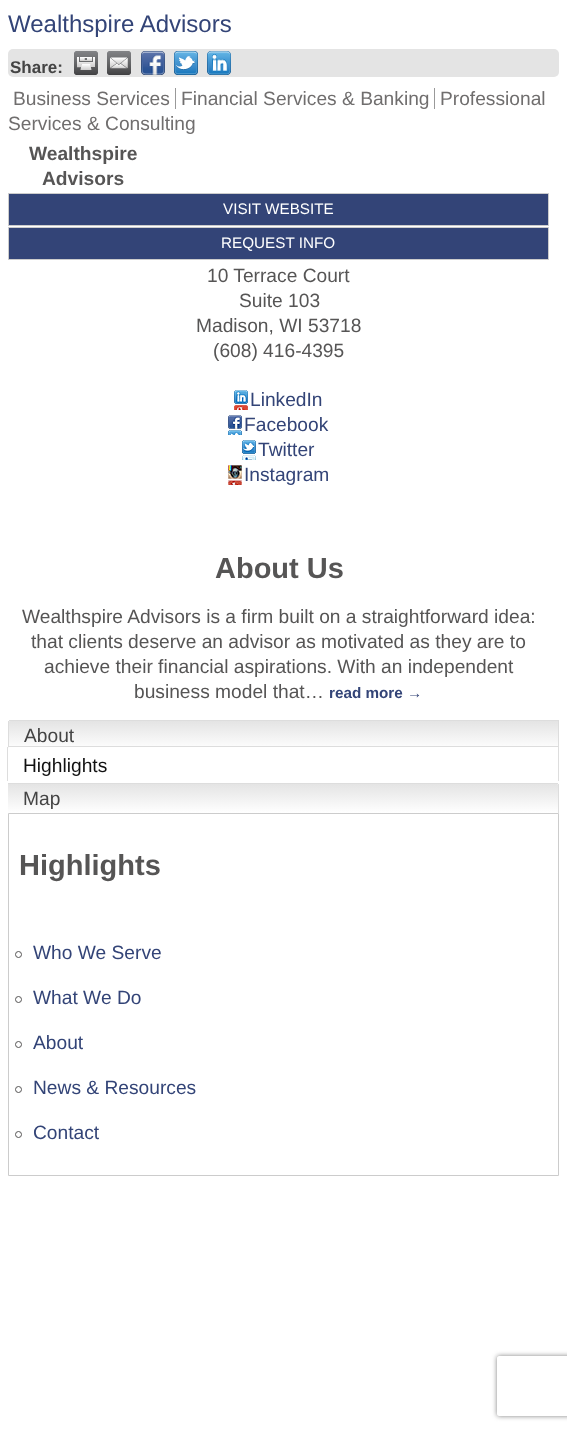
<svg xmlns="http://www.w3.org/2000/svg" width="567" height="1430">
<style>
.a{font:24px Liberation Sans;fill:#347}
.b{font:bold 17px Liberation Sans;fill:#444}
.c{font:19.2px Liberation Sans;fill:#706e6e}
.d{font:bold 19.2px Liberation Sans;fill:#565555}
.e{font:15.25px Liberation Sans;fill:#fff}
.f{font:19.2px Liberation Sans;fill:#565555}
.g{font:19.2px Liberation Sans;fill:#347}
.h{font:bold 29px Liberation Sans;fill:#565555}
.i{font:bold 15.25px Liberation Sans;fill:#347}
.j{font:19.2px Liberation Sans;fill:#444}
.k{font:19.2px Liberation Sans;fill:#111}
</style>
<defs>
<linearGradient id="g1" gradientUnits="userSpaceOnUse" x1="284" y1="721" x2="284" y2="750"><stop offset="0" stop-color="#e4e4e4"/><stop offset="1" stop-color="#fff"/></linearGradient>
<linearGradient id="g2" gradientUnits="userSpaceOnUse" x1="283" y1="784" x2="283" y2="813"><stop offset="0" stop-color="#e4e4e4"/><stop offset="1" stop-color="#fff"/></linearGradient>
<clipPath id="clip1"><path d="M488 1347h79v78h-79zm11 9h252c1 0 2 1 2 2v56c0 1-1 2-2 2h-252c-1 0-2-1-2-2v-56c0-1 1-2 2-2z" clip-rule="evenodd"/></clipPath>
</defs>
<rect width="100%" height="100%" fill="#fff"/>
<rect fill="#e4e4e4" x="8" y="49" width="551" height="28" rx="5"/>
<image href="1.png" x="74" y="51" width="24" height="24"/>
<image href="2.png" x="107" y="51" width="24" height="24"/>
<image href="3.png" x="141" y="51" width="24" height="24"/>
<image href="4.png" x="174" y="51" width="24" height="24"/>
<image href="5.png" x="207" y="51" width="24" height="24"/>
<path fill="#999" d="M175 88h1v21H175z"/>
<path fill="#999" d="M434 88h1v21H434z"/>
<path fill="#347" stroke="#ccc" d="M8.5 193.5h540v32H8.5z"/>
<path fill="#347" stroke="#ccc" d="M8.5 227.5h540v32H8.5z"/>
<image href="6.png" x="234" y="390" width="14" height="20"/>
<image href="7.png" x="228" y="415" width="14" height="20"/>
<image href="8.png" x="242" y="440" width="14" height="20"/>
<image href="9.png" x="228" y="465" width="14" height="20"/>
<path fill="url(#g1)" d="M10 721h548v29h-549v-28c0-.5 .5-1 1-1z"/>
<path fill="#ddd" d="M9 720h550v1H9z"/>
<path fill="#ddd" d="M558 720h1v61H558z"/>
<path fill="#ddd" d="M8 721h1v29H8z"/>
<path fill="#fff" d="M9 747h548c.5 0 1 .5 1 1v33h-550v-33c0-.5 .5-1 1-1z"/>
<path fill="#ddd" d="M8 746h550v1H8z"/>
<path fill="#ddd" d="M7 747h1v34H7z"/>
<path fill="url(#g2)" d="M8 784h549c.5 0 1 .5 1 1v28h-550z"/>
<path fill="#ddd" d="M8 783h550v1H8z"/>
<path fill="#ddd" d="M558 784h1v29H558z"/>
<path fill="none" stroke="#ccc" d="M8.5 813.5h550v362H8.5z"/>
<circle fill="none" stroke="#565555" cx="18.5" cy="954.5" r="3"/>
<circle fill="none" stroke="#565555" cx="18.5" cy="999.5" r="3"/>
<circle fill="none" stroke="#565555" cx="18.5" cy="1044.5" r="3"/>
<circle fill="none" stroke="#565555" cx="18.5" cy="1089.5" r="3"/>
<circle fill="none" stroke="#565555" cx="18.5" cy="1134.5" r="3"/>
<g clip-path="url(#clip1)">
<rect fill="#808080" filter="blur(2.5px)" x="497" y="1356" width="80" height="60" rx="2"/>
</g>
<text class="a" x="8" y="32">Wealthspire Advisors</text>
<text class="b" x="10" y="73">Share:</text>
<text class="c" x="13" y="105">Business Services</text>
<text class="c" x="181" y="105">Financial Services &amp; Banking</text>
<text class="c" x="440" y="105">Professional</text>
<text class="c" x="8" y="130">Services &amp; Consulting</text>
<text class="d" x="29" y="160">Wealthspire</text>
<text class="d" x="42" y="185">Advisors</text>
<text class="e" x="223" y="214">VISIT WEBSITE</text>
<text class="e" x="221" y="248">REQUEST INFO</text>
<text class="f" x="207" y="282">10 Terrace Court</text>
<text class="f" x="239" y="307">Suite 103</text>
<text class="f" x="196" y="332">Madison, WI 53718</text>
<text class="f" x="213" y="357">(608) 416-4395</text>
<text class="g" x="250" y="406">LinkedIn</text>
<text class="g" x="244" y="431">Facebook</text>
<text class="g" x="258" y="456">Twitter</text>
<text class="g" x="244" y="481">Instagram</text>
<text class="h" x="215" y="578">About Us</text>
<text class="f" x="22" y="623">Wealthspire Advisors is a firm built on a straightforward idea:</text>
<text class="f" x="31" y="648">that clients deserve an advisor as motivated as they are to</text>
<text class="f" x="44" y="673">achieve their financial aspirations. With an independent</text>
<text class="f" x="134" y="698">business model that…</text>
<text class="i" x="329" y="698">read more →</text>
<text class="j" x="24" y="742">About</text>
<text class="k" x="23" y="772">Highlights</text>
<text class="j" x="23" y="805">Map</text>
<text class="h" x="19" y="875">Highlights</text>
<text class="g" x="33" y="959">Who We Serve</text>
<text class="g" x="33" y="1004">What We Do</text>
<text class="g" x="33" y="1049">About</text>
<text class="g" x="33" y="1094">News &amp; Resources</text>
<text class="g" x="33" y="1139">Contact</text>
</svg>
